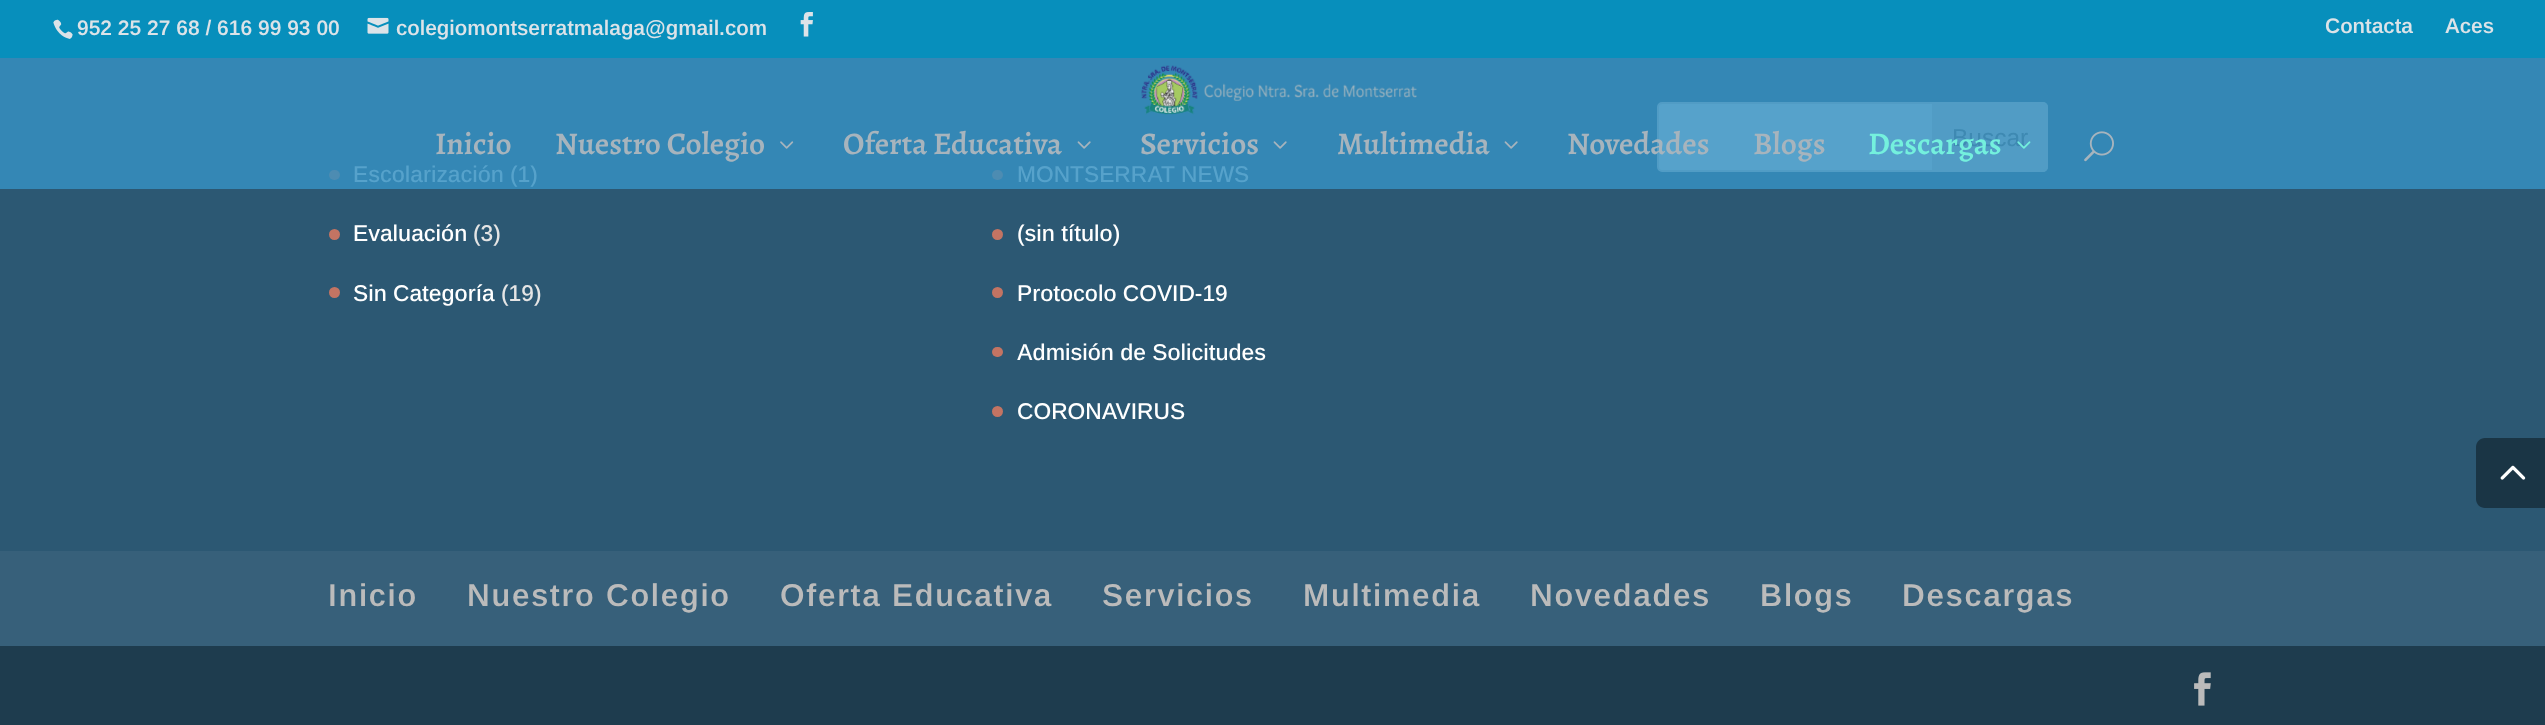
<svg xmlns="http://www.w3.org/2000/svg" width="2545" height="725">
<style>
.a{font:600 21px Arimo;fill:#dce3e8}
.b{font:24.5px Arimo;fill:#3e89b2}
.c{font:500 22.75px Arimo;fill:#56a2cb}
.d{font:500 22.75px Arimo;fill:#fff}
.e{font:500 22.75px Arimo;fill:#e5e5e5}
.f{font:600 31.5px Arimo;letter-spacing:1.75px;fill:#bbb}
.g{font:600 31.5px Alegreya;fill:#a7b4bd}
.h{font:600 31.5px Alegreya;fill:#74f0dd}
</style>
<rect width="100%" height="100%" fill="#2c5873"/>
<path fill="#078fbc" d="M0 0h2545v58H0z"/>
<image href="1.png" x="53" y="19" width="20" height="20"/>
<image href="2.png" x="367" y="17" width="22" height="17"/>
<image href="3.png" x="800" y="12" width="13" height="25"/>
<path fill="#3487b5" d="M0 58h2545v131H0z"/>
<rect fill="#56a2cb" stroke="#519cc5" stroke-width="2" x="1658" y="103" width="389" height="68" rx="4"/>
<path fill="#519cc5" stroke="#519cc5" stroke-width="2" d="M1933 103h110c2 0 4 2 4 4v60c0 2-2 4-4 4h-110z"/>
<rect fill="#4d8cb2" x="329" y="170" width="11" height="10" rx="5"/>
<circle fill="#c37463" cx="334.5" cy="234.5" r="5.5"/>
<circle fill="#c37463" cx="334.5" cy="292.5" r="5.5"/>
<rect fill="#4d8cb2" x="992" y="170" width="11" height="10" rx="5"/>
<circle fill="#c37463" cx="997.5" cy="234.5" r="5.5"/>
<circle fill="#c37463" cx="997.5" cy="292.5" r="5.5"/>
<rect fill="#c37463" x="992" y="347" width="11" height="10" rx="5"/>
<circle fill="#c37463" cx="997.5" cy="411.5" r="5.5"/>
<path fill="#37607a" d="M0 551h2545v95H0z"/>
<path fill="#1e3c4e" d="M0 646h2545v79H0z"/>
<image href="4.png" x="2194" y="672" width="17" height="34"/>
<path fill="#1a3545" d="M2485 438h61v70h-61c-5 0-9-4-9-9v-52c0-5 4-9 9-9z"/>
<image href="5.png" x="2500" y="465" width="26" height="15"/>
<image href="6.png" x="1141" y="65" width="276" height="50"/>
<image href="7.png" x="780" y="141" width="14" height="8"/>
<image href="8.png" x="1077" y="141" width="14" height="8"/>
<image href="8.png" x="1273" y="141" width="14" height="8"/>
<image href="8.png" x="1504" y="141" width="14" height="8"/>
<image href="10.png" x="2084" y="131" width="30" height="31"/>
<text class="a" x="77" y="35">952 25 27 68 / 616 99 93 00</text>
<text class="a" x="396" y="35">colegiomontserratmalaga@gmail.com</text>
<text class="a" x="2325" y="33">Contacta</text>
<text class="a" x="2445" y="33">Aces</text>
<text class="b" x="1952" y="146">Buscar</text>
<text class="c" x="353" y="182">Escolarización</text>
<text class="c" x="510" y="182">(1)</text>
<text class="d" x="353" y="241">Evaluación</text>
<text class="e" x="473" y="241">(3)</text>
<text class="d" x="353" y="301">Sin Categoría</text>
<text class="e" x="501" y="301">(19)</text>
<text class="c" x="1017" y="182">MONTSERRAT NEWS</text>
<text class="d" x="1017" y="241">(sin título)</text>
<text class="d" x="1017" y="301">Protocolo COVID-19</text>
<text class="d" x="1017" y="360">Admisión de Solicitudes</text>
<text class="d" x="1017" y="419">CORONAVIRUS</text>
<text class="f" x="328" y="606">Inicio</text>
<text class="f" x="467" y="606">Nuestro Colegio</text>
<text class="f" x="780" y="606">Oferta Educativa</text>
<text class="f" x="1102" y="606">Servicios</text>
<text class="f" x="1303" y="606">Multimedia</text>
<text class="f" x="1530" y="606">Novedades</text>
<text class="f" x="1760" y="606">Blogs</text>
<text class="f" x="1902" y="606">Descargas</text>
<text class="g" x="435" y="154">Inicio</text>
<text class="g" x="555" y="154">Nuestro Colegio</text>
<text class="g" x="843" y="154">Oferta Educativa</text>
<text class="g" x="1140" y="154">Servicios</text>
<text class="g" x="1337" y="154">Multimedia</text>
<text class="g" x="1567" y="154">Novedades</text>
<text class="g" x="1753" y="154">Blogs</text>
<text class="h" x="1868" y="154">Descargas</text>
<image href="9.png" x="2017" y="141" width="14" height="8"/>
</svg>
